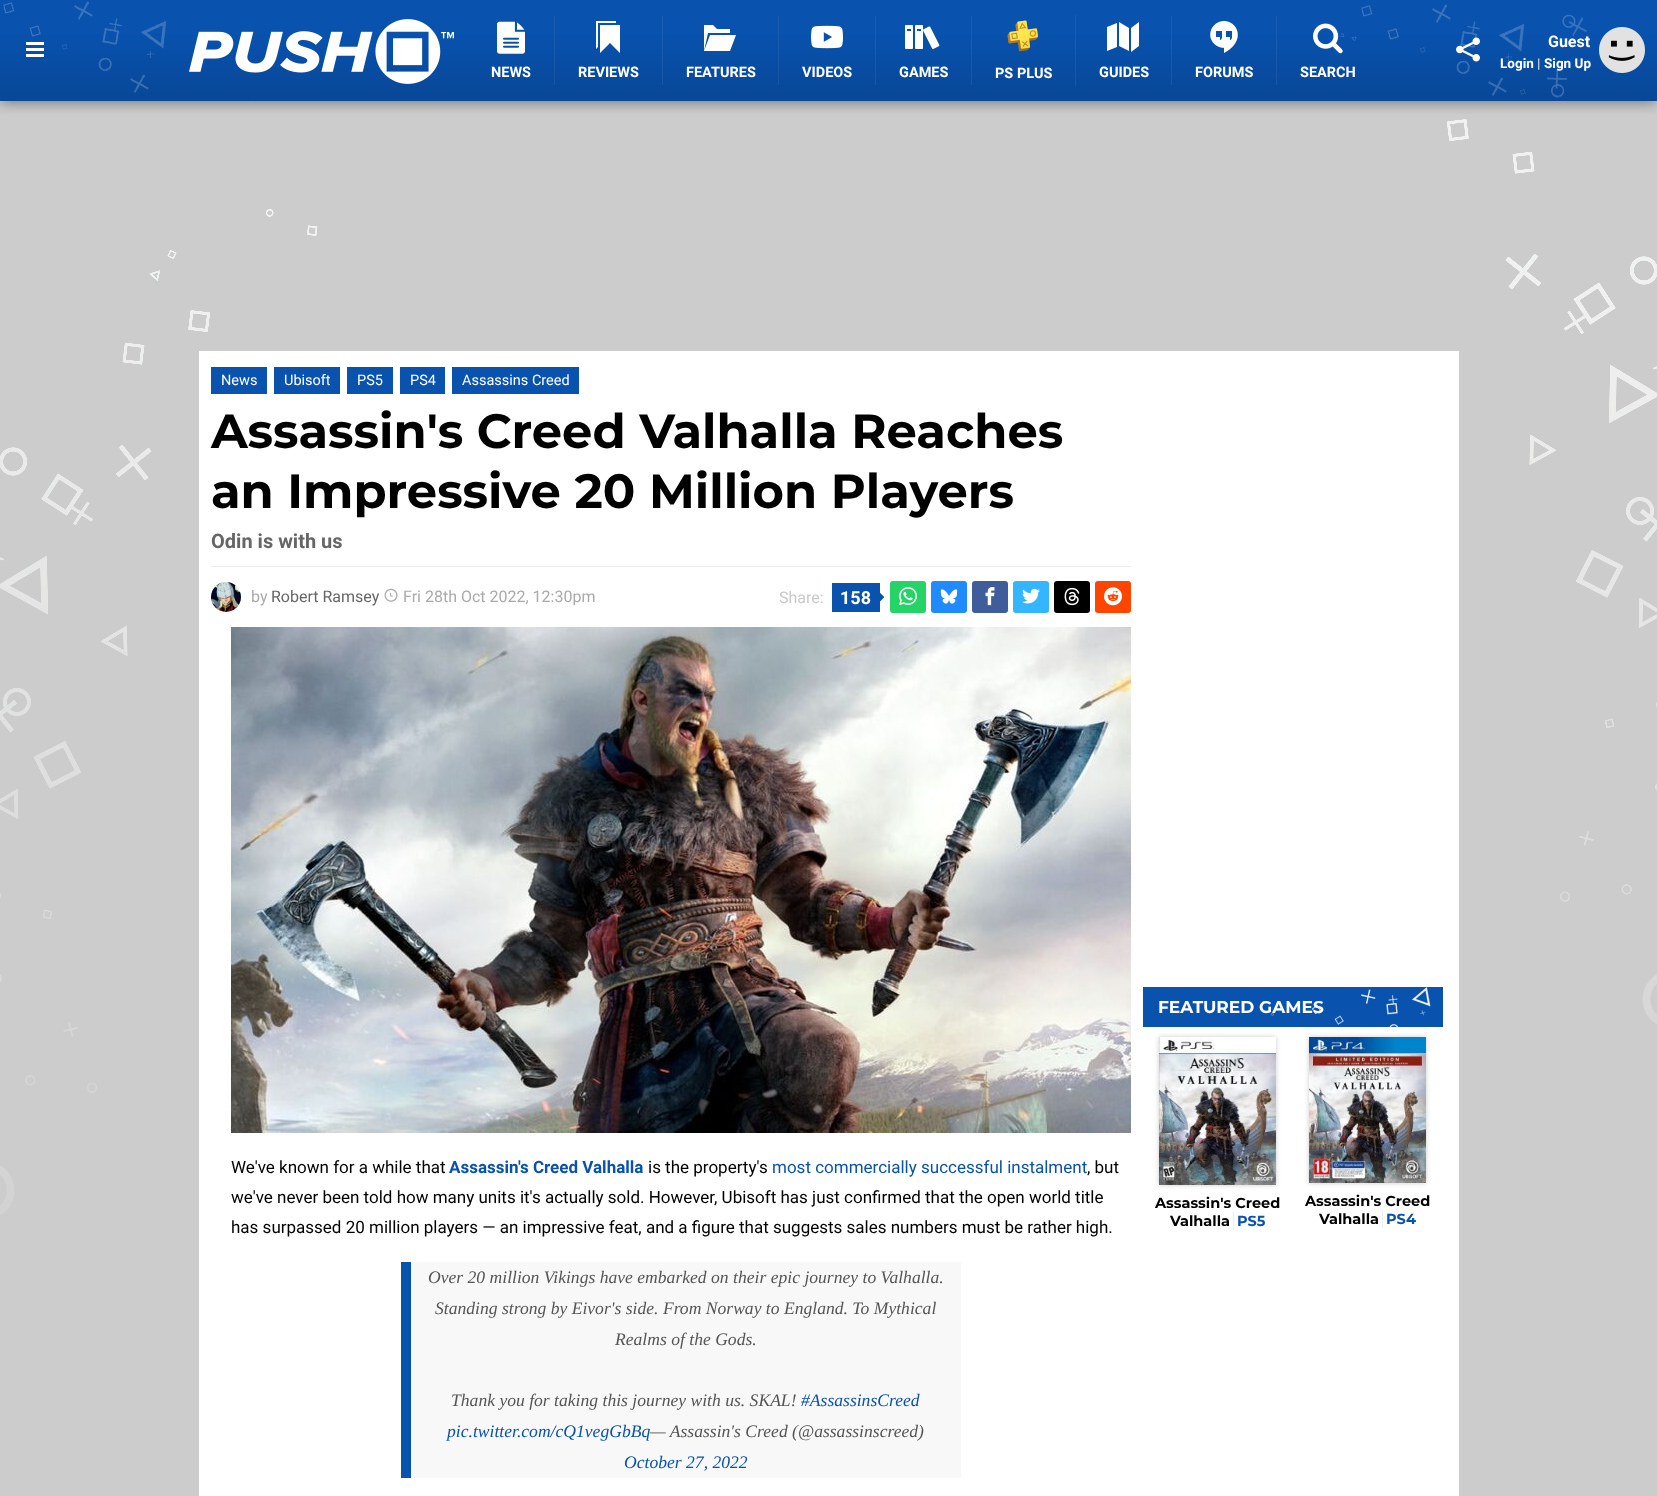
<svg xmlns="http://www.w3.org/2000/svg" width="1657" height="1496">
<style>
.a{font:bold 16px Roboto;fill:#fff}
.b{font:bold 13.5px Roboto;fill:#fff}
.c{font:bold 13.5px Roboto;fill:#d5d5d5}
.d{font:bold 14.5px Roboto;fill:#fff}
.e{font:14.5px Roboto;fill:#fff}
.f{font:bold 48px Montserrat;fill:#000}
.g{font:bold 20px Roboto;fill:#666}
.h{font:16px Roboto;fill:#aaa}
.i{font:16px Roboto;fill:#666}
.j{font:16px Roboto;fill:#c9c9c9}
.k{font:bold 18px Roboto;fill:#fff}
.l{font:17px Roboto;fill:#000}
.m{font:bold 17px Roboto;fill:#0952ae}
.n{font:17px Roboto;fill:#0952ae}
.o{font:italic 17.6px Liberation Serif;fill:#555}
.p{font:italic 17.6px Liberation Serif;fill:#0952ae}
.q{font:bold 17px Montserrat;fill:#fff}
.r{font:bold 14.5px Montserrat;fill:#000}
.s{font:bold 14.5px Montserrat;fill:#0952ae}
</style>
<defs>
<clipPath id="clip1"><path d="M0 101h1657v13H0z"/></clipPath>
</defs>
<rect width="100%" height="100%" fill="#ccc"/>
<path fill="#0952ae" d="M0 0h1657v101H0z"/>
<image href="13.png" x="0" y="119" width="1657" height="1096"/>
<g clip-path="url(#clip1)">
<path fill="#00000080" filter="blur(7.5px)" d="M0 0h1657v101H0z"/>
</g>
<image href="1.png" x="0" y="1" width="1657" height="100"/>
<image href="2.png" x="26" y="42" width="18" height="15"/>
<image href="3.png" x="1456" y="37" width="24" height="25"/>
<image href="4.png" x="1599" y="27" width="46" height="46"/>
<image href="5.png" x="189" y="19" width="265" height="65"/>
<path fill="#ffffff12" d="M554 16h1v69H554z"/>
<image href="6.png" x="497" y="21" width="28" height="33"/>
<path fill="#ffffff12" d="M662 16h1v69H662z"/>
<path fill="#fff" d="M600 25v28l10-10l10 10v-28zm16-4h-20v28l2-2v-24h18z"/>
<path fill="#ffffff12" d="M778 16h1v69H778z"/>
<path fill="#fff" d="M730 51l6-16h-26l-6 16zm-22-18l-4 18v-26h9l4 4h13v4z"/>
<path fill="#ffffff12" d="M875 16h1v69H875z"/>
<image href="7.png" x="811" y="25" width="32" height="24"/>
<path fill="#ffffff12" d="M971 16h1v69H971z"/>
<image href="8.png" x="905" y="25" width="35" height="24"/>
<path fill="#ffffff12" d="M1075 15h1v71H1075z"/>
<image href="9.png" x="1007" y="20" width="31" height="32"/>
<path fill="#ffffff12" d="M1171 16h1v69H1171z"/>
<image href="10.png" x="1107" y="22" width="32" height="30"/>
<path fill="#ffffff12" d="M1276 16h1v69H1276z"/>
<image href="11.png" x="1210" y="21" width="28" height="32"/>
<image href="12.png" x="1313" y="23" width="30" height="31"/>
<path fill="#fff" d="M199 351h1260v1145H199z"/>
<path fill="#eee" d="M211 566h920v1H211z"/>
<path fill="#0952ae" d="M211 367h56v27H211z"/>
<path fill="#0952ae" d="M274 367h66v27H274z"/>
<path fill="#0952ae" d="M347 367h46v27H347z"/>
<path fill="#0952ae" d="M400 367h45v27H400z"/>
<path fill="#0952ae" d="M452 367h127v27H452z"/>
<image href="14.png" x="211" y="582" width="30" height="30"/>
<image href="15.png" x="384" y="588" width="14" height="14"/>
<path fill="#0952ae" d="M832 583h48v29H832z"/>
<image href="16.png" x="880" y="592" width="5" height="10"/>
<rect fill="#25d366" x="890" y="581" width="36" height="32" rx="3"/>
<image href="17.png" x="899" y="587" width="18" height="19"/>
<rect fill="#208bfe" x="931" y="581" width="36" height="32" rx="3"/>
<image href="18.png" x="940" y="589" width="18" height="15"/>
<rect fill="#405d9b" x="972" y="581" width="36" height="32" rx="3"/>
<image href="19.png" x="985" y="587" width="10" height="19"/>
<rect fill="#33b5ff" x="1013" y="581" width="36" height="32" rx="3"/>
<image href="20.png" x="1022" y="588" width="18" height="16"/>
<rect fill="#000" x="1054" y="581" width="36" height="32" rx="3"/>
<image href="21.png" x="1064" y="587" width="16" height="19"/>
<rect fill="#ff4500" x="1095" y="581" width="36" height="32" rx="3"/>
<image href="22.png" x="1104" y="587" width="18" height="19"/>
<image href="23.png" x="231" y="627" width="900" height="506"/>
<path fill="#f8f8f8" d="M411 1262h550v216H411z"/>
<path fill="#0952ae" d="M401 1262h10v216H401z"/>
<path fill="#0952ae" d="M1143 987h300v40H1143z"/>
<image href="24.png" x="1271" y="987" width="160" height="40"/>
<path fill="#00000033" filter="blur(2.5px)" d="M1159 1037h117v148H1159z"/>
<image href="25.png" x="1159" y="1037" width="117" height="148"/>
<path fill="#eee" d="M1233 1212h1v18H1233z"/>
<path fill="#00000033" filter="blur(2.5px)" d="M1309 1037h117v146H1309z"/>
<image href="26.png" x="1309" y="1037" width="117" height="146"/>
<path fill="#eee" d="M1382 1210h1v18H1382z"/>
<text class="a" x="1548" y="47">Guest</text>
<text class="b" x="1500" y="68">Login</text>
<text class="c" x="1537" y="68">|</text>
<text class="b" x="1544" y="68">Sign Up</text>
<text class="d" x="491" y="77">NEWS</text>
<text class="d" x="578" y="77">REVIEWS</text>
<text class="d" x="686" y="77">FEATURES</text>
<text class="d" x="802" y="77">VIDEOS</text>
<text class="d" x="899" y="77">GAMES</text>
<text class="d" x="995" y="78">PS PLUS</text>
<text class="d" x="1099" y="77">GUIDES</text>
<text class="d" x="1195" y="77">FORUMS</text>
<text class="d" x="1300" y="77">SEARCH</text>
<text class="e" x="221" y="385">News</text>
<text class="e" x="284" y="385">Ubisoft</text>
<text class="e" x="357" y="385">PS5</text>
<text class="e" x="410" y="385">PS4</text>
<text class="e" x="462" y="385">Assassins Creed</text>
<text class="f" x="211" y="448">Assassin's Creed Valhalla Reaches</text>
<text class="f" x="211" y="508">an Impressive 20 Million Players</text>
<text class="g" x="211" y="548">Odin is with us</text>
<text class="h" x="251" y="602">by</text>
<text class="i" x="271" y="602">Robert Ramsey</text>
<text class="h" x="403" y="602">Fri 28th Oct 2022, 12:30pm</text>
<text class="j" x="779" y="603">Share:</text>
<text class="k" x="840" y="604">158</text>
<text class="l" x="231" y="1173">We've known for a while that</text>
<text class="m" x="449" y="1173">Assassin's Creed Valhalla</text>
<text class="l" x="648" y="1173">is the property's</text>
<text class="n" x="772" y="1173">most commercially successful instalment</text>
<text class="l" x="1087" y="1173">, but</text>
<text class="l" x="231" y="1203">we've never been told how many units it's actually sold. However, Ubisoft has just confirmed that the open world title</text>
<text class="l" x="231" y="1233">has surpassed 20 million players — an impressive feat, and a figure that suggests sales numbers must be rather high.</text>
<text class="o" x="428" y="1283">Over 20 million Vikings have embarked on their epic journey to Valhalla.</text>
<text class="o" x="435" y="1314">Standing strong by Eivor's side. From Norway to England. To Mythical</text>
<text class="o" x="615" y="1345">Realms of the Gods.</text>
<text class="o" x="451" y="1406">Thank you for taking this journey with us. SKAL!</text>
<text class="p" x="801" y="1406">#AssassinsCreed</text>
<text class="p" x="447" y="1437">pic.twitter.com/cQ1vegGbBq</text>
<text class="o" x="650" y="1437">— Assassin's Creed (@assassinscreed)</text>
<text class="p" x="624" y="1468">October 27, 2022</text>
<text class="q" x="1158" y="1013">FEATURED GAMES</text>
<text class="r" x="1155" y="1208">Assassin's Creed</text>
<text class="r" x="1170" y="1226">Valhalla</text>
<text class="s" x="1237" y="1226">PS5</text>
<text class="r" x="1305" y="1206">Assassin's Creed</text>
<text class="r" x="1319" y="1224">Valhalla</text>
<text class="s" x="1386" y="1224">PS4</text>
</svg>
